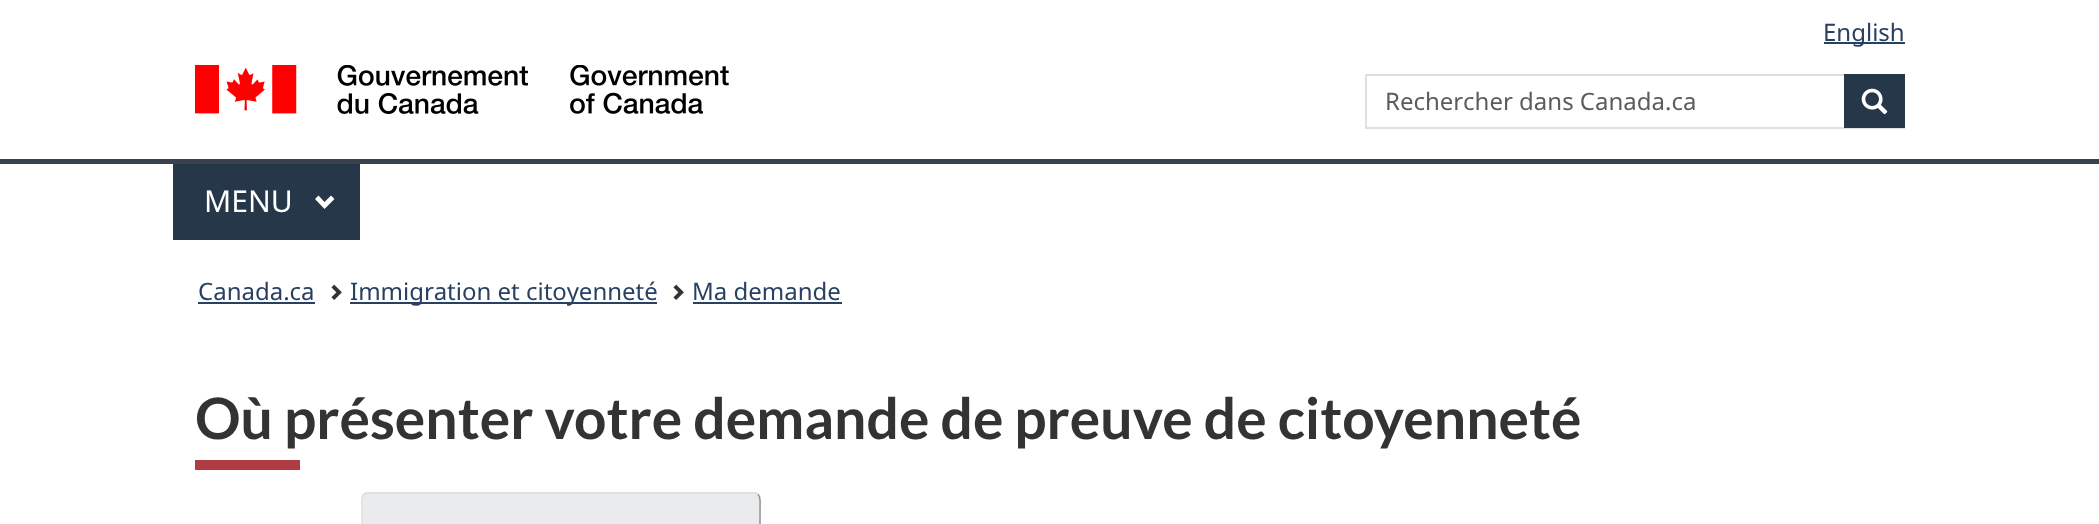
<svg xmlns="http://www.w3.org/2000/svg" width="2099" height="524">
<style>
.a{font:24px Noto Sans;fill:#284162}
.b{font:24px Noto Sans;fill:#5c5c5c}
.c{font:30px Noto Sans;fill:#fff}
.d{font:bold 57px Lato;fill:#333}
</style>
<rect width="100%" height="100%" fill="#fff"/>
<path fill="#284162" d="M1824 42h81v2H1824z"/>
<image href="1.png" x="195" y="65" width="534" height="49"/>
<path fill="none" stroke="#e0e0e0" stroke-width="2" d="M1366 75h538v53H1366z"/>
<path fill="#26374a" d="M1844 74h61v54H1844z"/>
<image href="2.png" x="1861" y="88" width="27" height="27"/>
<path fill="#38414d" d="M0 159h2099v5H0z"/>
<path fill="#26374a" d="M173 164h187v76H173z"/>
<path fill="#fff" d="M334.5 199l-10 10l-9.5-10l3.5-3.5l6 6.5l6.5-6.5z"/>
<path fill="#284162" d="M198 302h117v2H198z"/>
<image href="3.png" x="331" y="284" width="11" height="16"/>
<path fill="#284162" d="M350 302h307v2H350z"/>
<image href="3.png" x="673" y="284" width="11" height="16"/>
<path fill="#284162" d="M693 302h149v2H693z"/>
<path fill="#af3c43" d="M195 460h105v10H195z"/>
<rect fill="#eaebed" x="362" y="492" width="399" height="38" rx="6"/>
<path fill="none" stroke="#939496" stroke-width="1.5" d="M758 494.5c3 3 2 10 2 12.5v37c0 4 2 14.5-5.5 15l-388-.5l-2.5-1.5"/>
<path fill="none" stroke="#dcdee1" stroke-width="1.5" d="M364 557c-3-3-2-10-2-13v-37c0-3.5-2-14 5.5-14h388l2.5 1.5"/>
<text class="a" x="1823" y="41">English</text>
<text class="b" x="1385" y="110">Rechercher dans Canada.ca</text>
<text class="c" x="204" y="212">MENU</text>
<text class="a" x="198" y="300">Canada.ca</text>
<text class="a" x="350" y="300">Immigration et citoyenneté</text>
<text class="a" x="692" y="300">Ma demande</text>
<text class="d" x="195" y="439">Où présenter votre demande de preuve de citoyenneté</text>
</svg>
